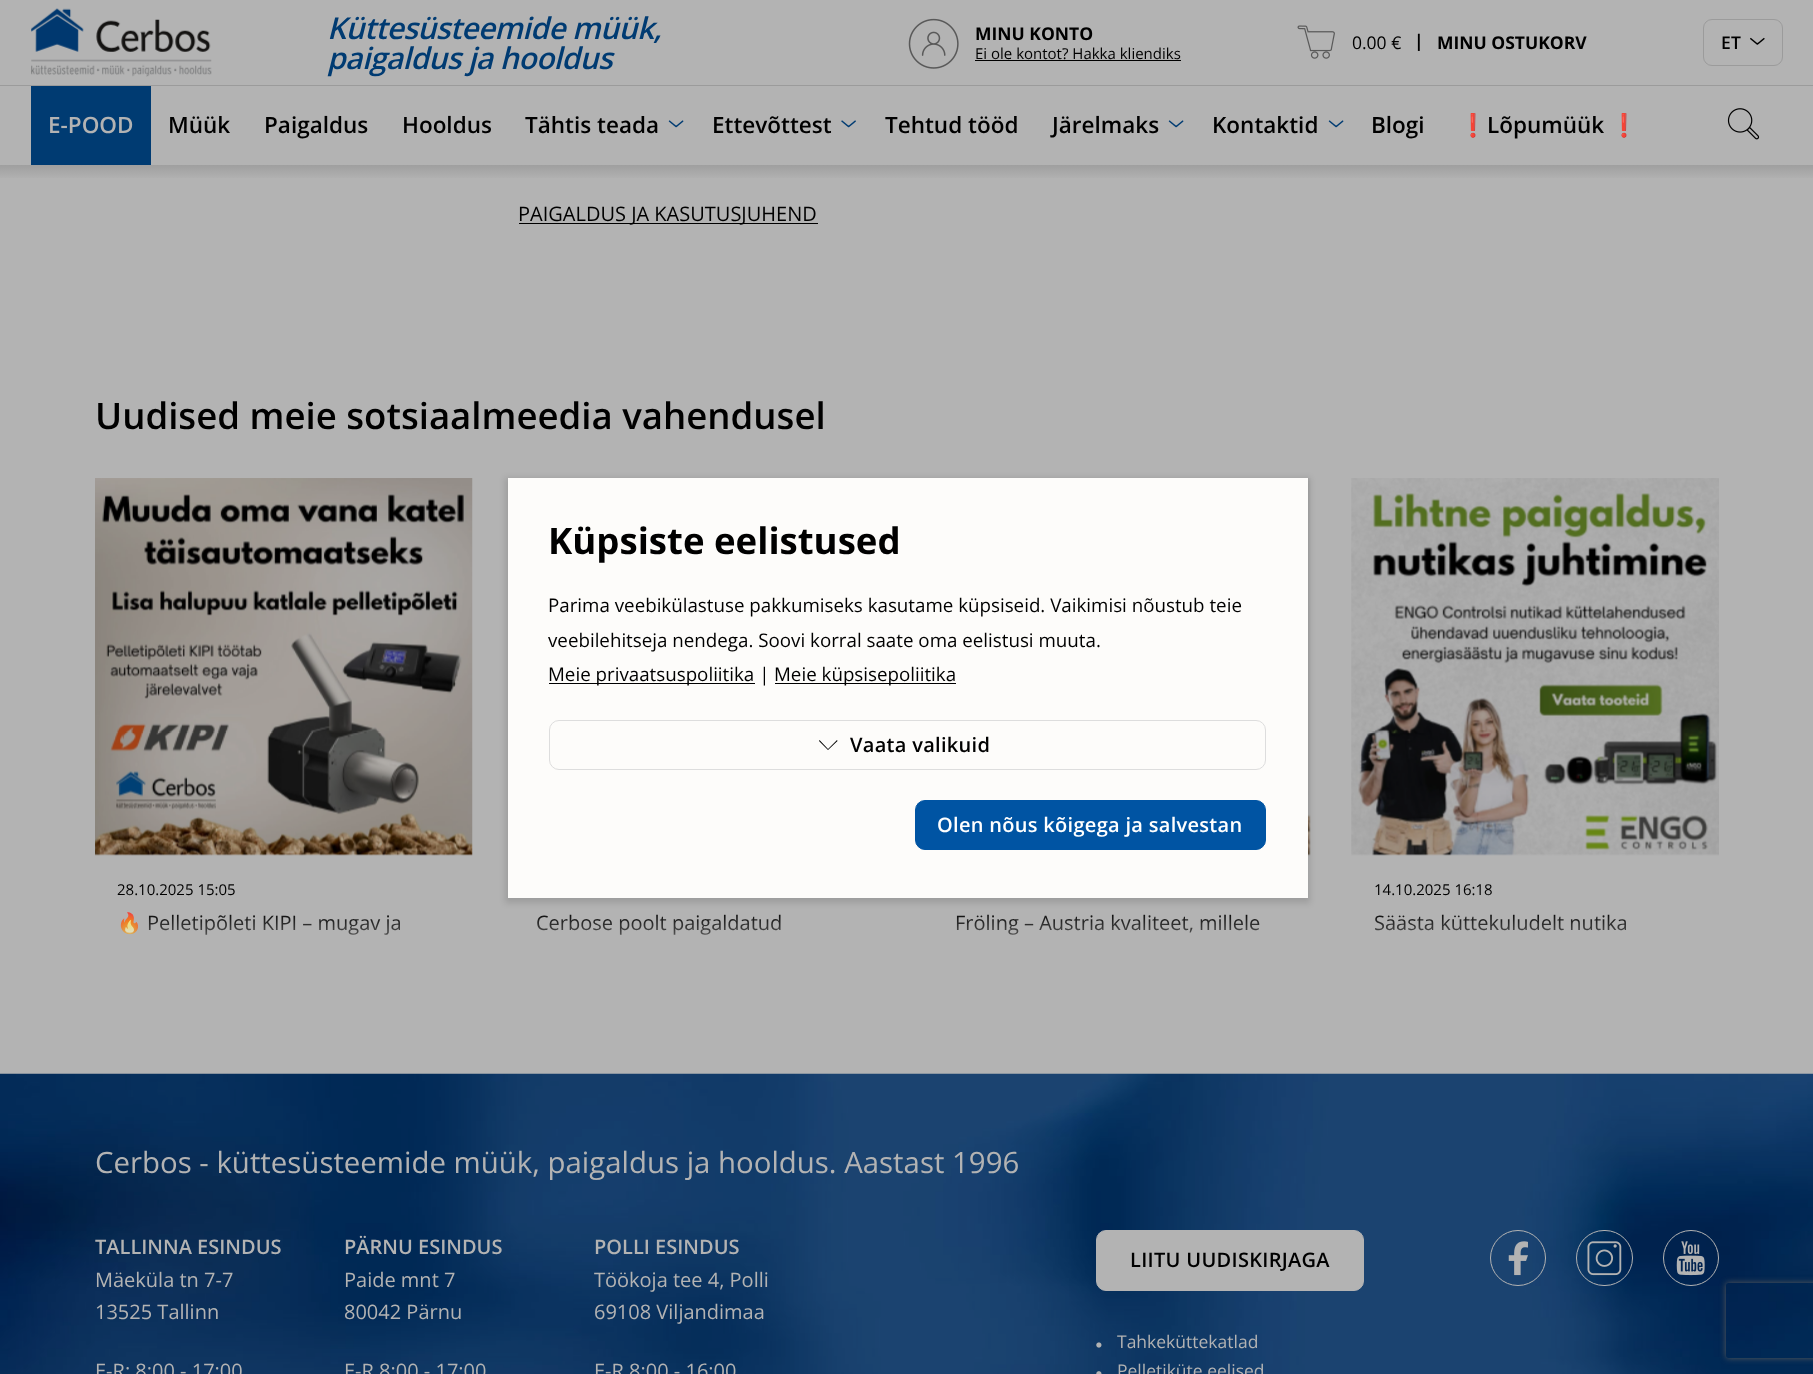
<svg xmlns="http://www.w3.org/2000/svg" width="1813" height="1374">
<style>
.a{font:italic 600 30px Open Sans;letter-spacing:-0.6px;fill:#003b72}
.b{font:bold 17.5px Open Sans;fill:#000}
.c{font:15px Open Sans;fill:#000}
.d{font:17.5px Open Sans;fill:#000}
.e{font:600 17.5px Open Sans;letter-spacing:0.3px;fill:#000}
.f{font:600 22.5px Open Sans;fill:#b3b3b3}
.g{font:600 22.5px Open Sans;fill:#000}
.h{font:bold 22.5px Noto Color Emoji;fill:#000}
.i{font:20px Open Sans;fill:#000}
.j{font:600 36.6px Open Sans;fill:#000}
.k{font:20px Noto Color Emoji;fill:#000}
.l{font:29.4px Open Sans;fill:#b3b3b3}
.m{font:600 20px Open Sans;fill:#b3b3b3}
.n{font:20px Open Sans;fill:#b3b3b3}
.o{font:600 20px Open Sans;letter-spacing:0.3px;fill:#000}
.p{font:17.5px Open Sans;fill:#b3b3b3}
.q{font:bold 36.6px Open Sans;fill:#000}
.r{font:18.75px Open Sans;fill:#000}
.s{font:600 20px Open Sans;letter-spacing:0.3px;fill:#fff}
</style>
<defs>
<linearGradient id="g1" gradientUnits="userSpaceOnUse" x1="907" y1="165" x2="907" y2="180"><stop offset="0" stop-color="#9f9f9f"/><stop offset="1" stop-color="#b3b3b3"/></linearGradient>
<clipPath id="clip1"><path d="M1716 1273h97v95h-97zm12.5 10h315c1.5 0 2.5 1 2.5 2.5v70c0 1.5-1 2.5-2.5 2.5h-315c-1.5 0-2.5-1-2.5-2.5v-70c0-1.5 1-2.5 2.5-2.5z" clip-rule="evenodd"/></clipPath>
<linearGradient id="g2" gradientUnits="userSpaceOnUse" x1="284" y1="910" x2="284" y2="965"><stop offset="0" stop-color="#b3b3b3" stop-opacity="0"/><stop offset="1" stop-color="#b3b3b3"/></linearGradient>
<linearGradient id="g3" gradientUnits="userSpaceOnUse" x1="703" y1="910" x2="703" y2="965"><stop offset="0" stop-color="#b3b3b3" stop-opacity="0"/><stop offset="1" stop-color="#b3b3b3"/></linearGradient>
<linearGradient id="g4" gradientUnits="userSpaceOnUse" x1="1121" y1="910" x2="1121" y2="965"><stop offset="0" stop-color="#b3b3b3" stop-opacity="0"/><stop offset="1" stop-color="#b3b3b3"/></linearGradient>
<linearGradient id="g5" gradientUnits="userSpaceOnUse" x1="1540" y1="910" x2="1540" y2="965"><stop offset="0" stop-color="#b3b3b3" stop-opacity="0"/><stop offset="1" stop-color="#b3b3b3"/></linearGradient>
</defs>
<rect width="100%" height="100%" fill="#b3b3b3"/>
<path fill="#9b9b9b" d="M0 85h1813v1H0z"/>
<image href="1.png" x="31" y="8" width="181" height="69"/>
<image href="2.png" x="908" y="18" width="51" height="51"/>
<path fill="#000" d="M975 60h206v1H975z"/>
<image href="3.png" x="1297" y="25" width="38" height="34"/>
<rect fill="none" stroke="#9b9b9b" x="1703.5" y="19.5" width="79" height="46" rx="8.5"/>
<image href="4.png" x="1750" y="37" width="15" height="8"/>
<path fill="#003b72" d="M31 86h120v79H31z"/>
<image href="5.png" x="668" y="120" width="16" height="8"/>
<image href="6.png" x="841" y="120" width="15" height="8"/>
<image href="5.png" x="1168" y="120" width="16" height="8"/>
<image href="5.png" x="1328" y="120" width="16" height="8"/>
<image href="7.png" x="1727" y="108" width="33" height="32"/>
<path fill="url(#g1)" d="M0 165h1813v13H0z"/>
<path fill="#000" d="M519 223h299v1H519z"/>
<image href="8.png" x="95" y="478" width="378" height="378"/>
<image href="9.png" x="1308" y="478" width="3" height="378"/>
<image href="10.png" x="1351" y="478" width="368" height="378"/>
<image href="11.png" x="0" y="1073" width="1813" height="301"/>
<rect fill="#b3b3b3" stroke="#b3b3b3" x="1096.5" y="1230.5" width="267" height="60" rx="9.5"/>
<circle fill="none" stroke="#b3b3b3" cx="1518" cy="1258" r="27.5"/>
<image href="12.png" x="1508" y="1241" width="20" height="35"/>
<rect fill="none" stroke="#b3b3b3" x="1576.5" y="1230.5" width="56" height="55" rx="27.5"/>
<image href="13.png" x="1587" y="1241" width="35" height="35"/>
<circle fill="none" stroke="#b3b3b3" cx="1691" cy="1258" r="27.5"/>
<image href="14.png" x="1676" y="1241" width="29" height="35"/>
<image href="15.png" x="1096" y="1342" width="6" height="6"/>
<image href="16.png" x="1096" y="1371" width="6" height="3"/>
<path fill="#0000001f" filter="blur(3px)" d="M505 478h805v425H505z"/>
<path fill="#fdfcfa" d="M508 478h800v420H508z"/>
<path fill="#000" d="M549 683h206v1H549z"/>
<path fill="#000" d="M775 683h181v1H775z"/>
<rect fill="none" stroke="#ddd" x="549.5" y="720.5" width="716" height="49" rx="9.5"/>
<path fill="#000" d="M819 741l9 9l9.5-9l-.5-1l-9 9l-8.5-9z"/>
<rect fill="#0054a3" stroke="#0054a3" x="915.5" y="800.5" width="350" height="49" rx="9.5"/>
<g clip-path="url(#clip1)">
<rect fill="#5a5a5a" filter="blur(3px)" x="1726" y="1283" width="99" height="75" rx="2.5"/>
</g>
<text class="a" x="327" y="39">Küttesüsteemide müük,</text>
<text class="a" x="327" y="69">paigaldus ja hooldus</text>
<text class="b" x="975" y="40">MINU KONTO</text>
<text class="c" x="975" y="59">Ei ole kontot? Hakka kliendiks</text>
<text class="d" x="1352" y="49">0.00 €</text>
<text class="b" x="1414" y="47">|</text>
<text class="b" x="1437" y="49">MINU OSTUKORV</text>
<text class="e" x="1721" y="49">ET</text>
<text class="f" x="48" y="133">E-POOD</text>
<text class="g" x="168" y="133">Müük</text>
<text class="g" x="264" y="133">Paigaldus</text>
<text class="g" x="402" y="133">Hooldus</text>
<text class="g" x="525" y="133">Tähtis teada</text>
<text class="g" x="712" y="133">Ettevõttest</text>
<text class="g" x="885" y="133">Tehtud tööd</text>
<text class="g" x="1052" y="133">Järelmaks</text>
<text class="g" x="1212" y="133">Kontaktid</text>
<text class="g" x="1371" y="133">Blogi</text>
<text class="h" x="1459" y="133">❗️</text>
<text class="g" x="1487" y="133">Lõpumüük</text>
<text class="h" x="1610" y="133">❗️</text>
<text class="i" x="518" y="221">PAIGALDUS JA KASUTUSJUHEND</text>
<text class="j" x="95" y="429">Uudised meie sotsiaalmeedia vahendusel</text>
<text class="c" x="117" y="895">28.10.2025 15:05</text>
<text class="k" x="117" y="930">🔥</text>
<text class="i" x="147" y="930">Pelletipõleti KIPI – mugav ja</text>
<path fill="url(#g2)" d="M117 912h284v23H117z"/>
<text class="i" x="536" y="930">Cerbose poolt paigaldatud</text>
<path fill="url(#g3)" d="M537 914h244v21H537z"/>
<text class="i" x="955" y="930">Fröling – Austria kvaliteet, millele</text>
<path fill="url(#g4)" d="M956 914h303v21H956z"/>
<text class="c" x="1374" y="895">14.10.2025 16:18</text>
<text class="i" x="1374" y="930">Säästa küttekuludelt nutika</text>
<path fill="url(#g5)" d="M1374 914h252v17H1374z"/>
<text class="l" x="95" y="1173">Cerbos - küttesüsteemide müük, paigaldus ja hooldus. Aastast 1996</text>
<text class="m" x="95" y="1254">TALLINNA ESINDUS</text>
<text class="n" x="95" y="1287">Mäeküla tn 7-7</text>
<text class="n" x="95" y="1319">13525 Tallinn</text>
<text class="n" x="95" y="1378">E-R: 8:00 - 17:00</text>
<text class="m" x="344" y="1254">PÄRNU ESINDUS</text>
<text class="n" x="344" y="1287">Paide mnt 7</text>
<text class="n" x="344" y="1319">80042 Pärnu</text>
<text class="n" x="344" y="1378">E-R 8:00 - 17:00</text>
<text class="m" x="594" y="1254">POLLI ESINDUS</text>
<text class="n" x="594" y="1287">Töökoja tee 4, Polli</text>
<text class="n" x="594" y="1319">69108 Viljandimaa</text>
<text class="n" x="594" y="1378">E-R 8:00 - 16:00</text>
<text class="o" x="1130" y="1267">LIITU UUDISKIRJAGA</text>
<text class="p" x="1117" y="1348">Tahkeküttekatlad</text>
<text class="p" x="1117" y="1377">Pelletiküte eelised</text>
<text class="q" x="548" y="554">Küpsiste eelistused</text>
<text class="r" x="548" y="612">Parima veebikülastuse pakkumiseks kasutame küpsiseid. Vaikimisi nõustub teie</text>
<text class="r" x="548" y="647">veebilehitseja nendega. Soovi korral saate oma eelistusi muuta.</text>
<text class="r" x="548" y="681">Meie privaatsuspoliitika |</text>
<text class="r" x="774" y="681">Meie küpsisepoliitika</text>
<text class="o" x="850" y="752">Vaata valikuid</text>
<text class="s" x="937" y="832">Olen nõus kõigega ja salvestan</text>
</svg>
